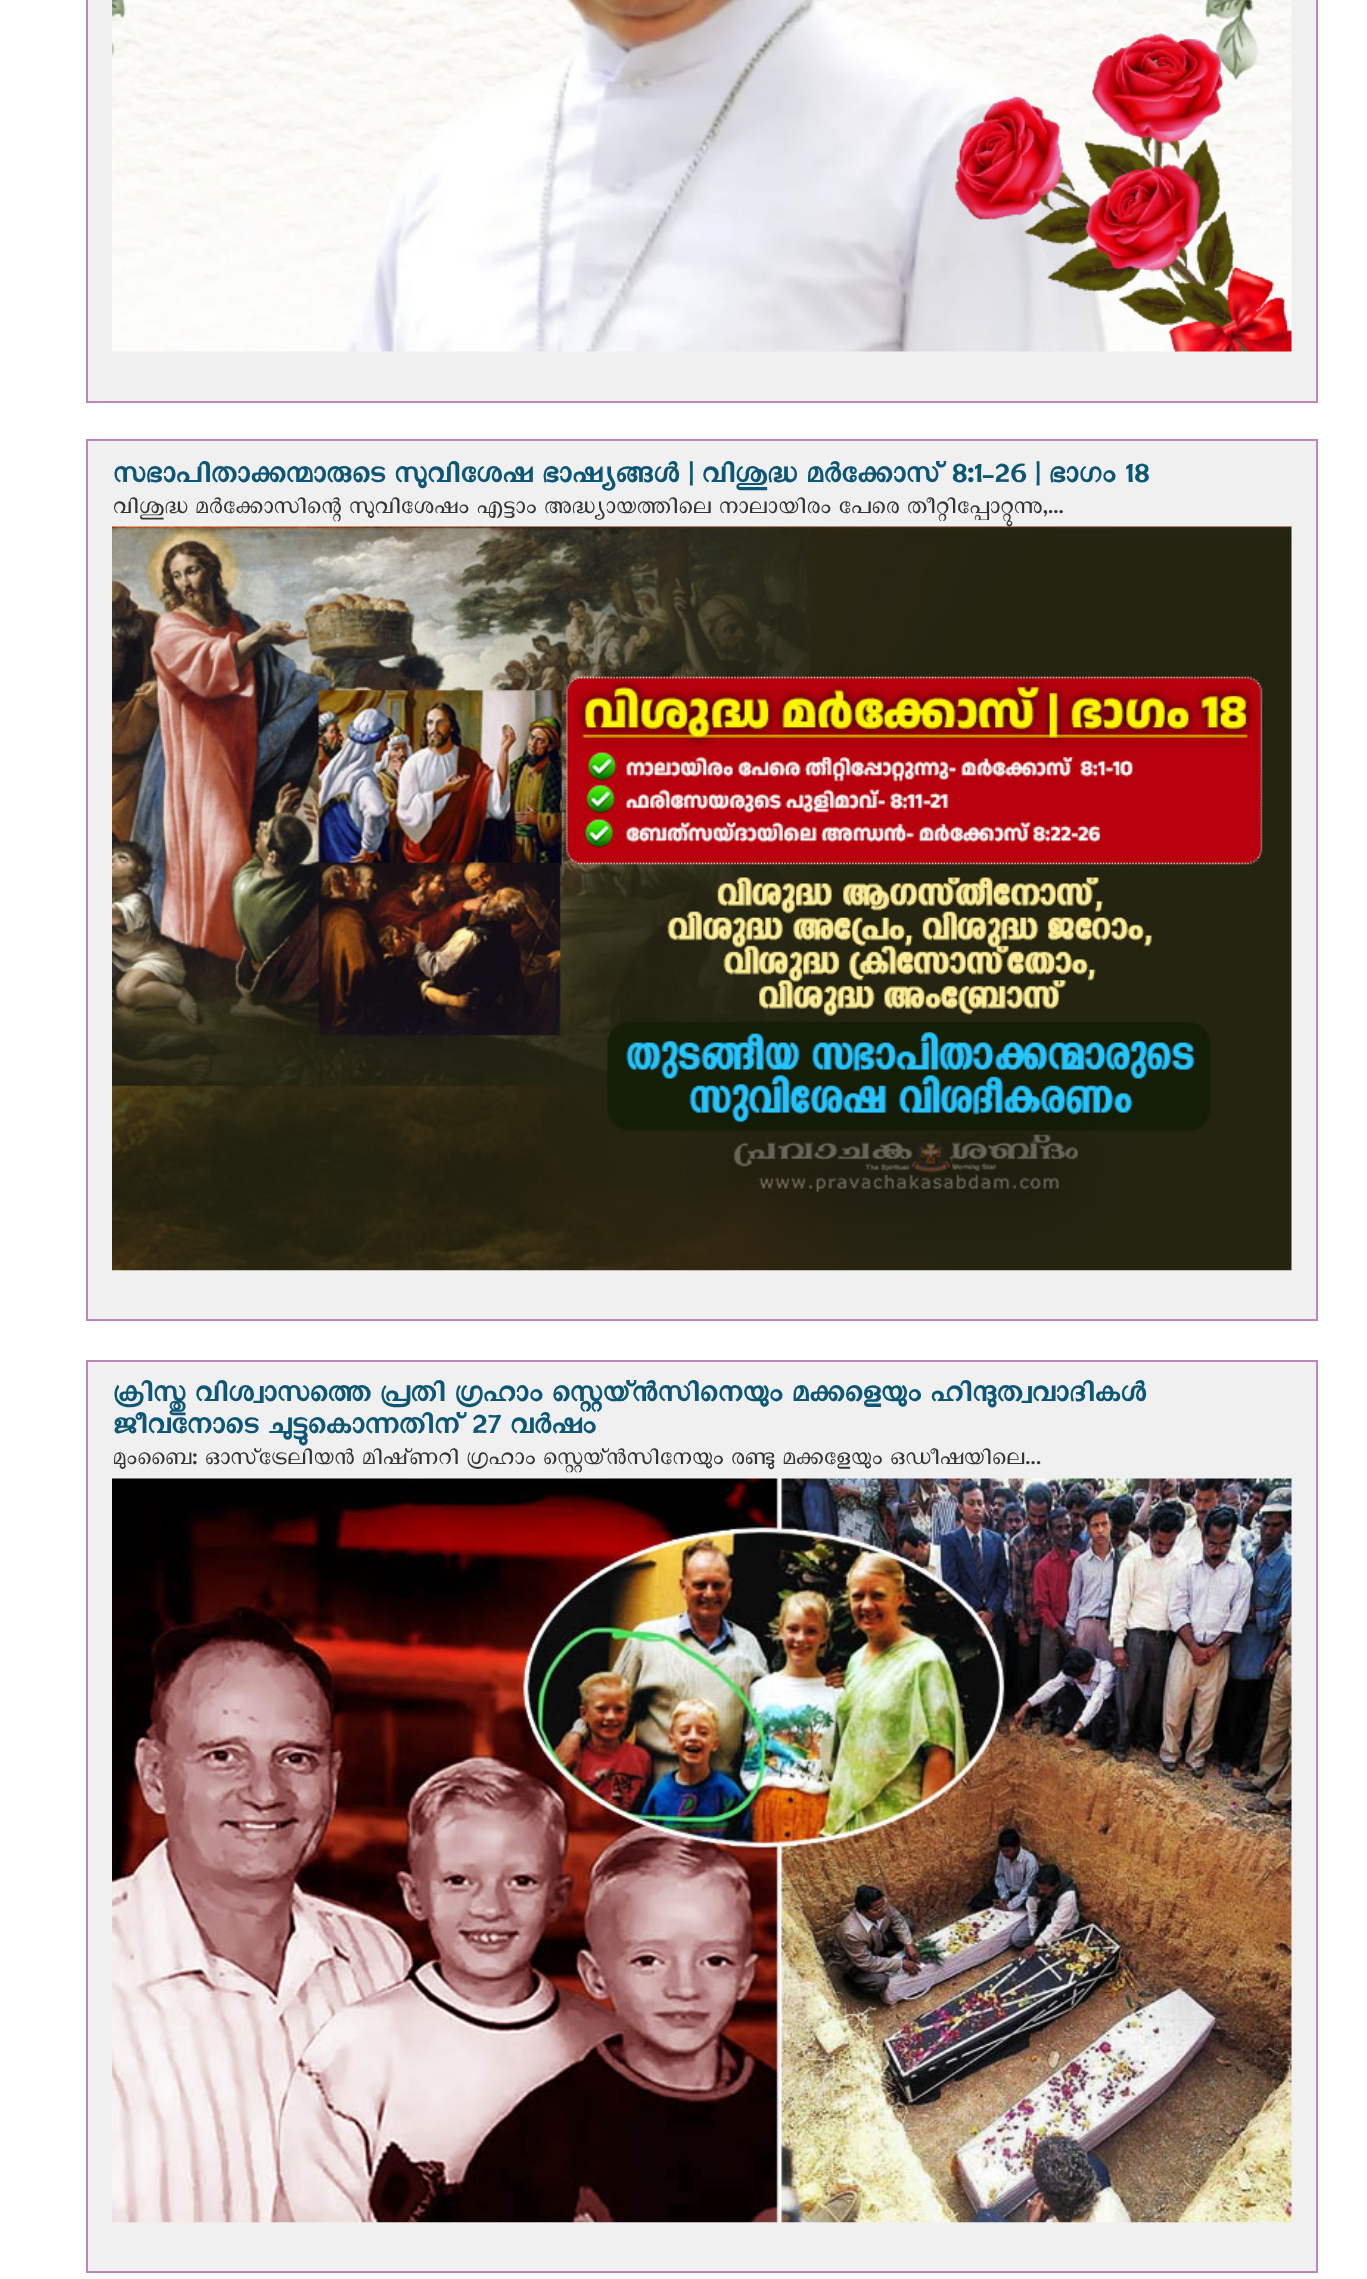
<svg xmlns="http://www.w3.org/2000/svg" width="1367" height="2279">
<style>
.a{font:bold 33.25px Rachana;fill:#0c5676}
.b{font:26.25px Rachana;fill:#333}
</style>
<rect width="100%" height="100%" fill="#fff"/>
<path fill="#f0f0f0" stroke="#ba87b7" stroke-width="2" d="M87 -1h1230v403H87z"/>
<image href="1.png" x="112" y="0" width="1180" height="352"/>
<path fill="#f0f0f0" stroke="#ba87b7" stroke-width="2" d="M87 440h1230v880H87z"/>
<path fill="#f0f0f0" stroke="#ba87b7" stroke-width="2" d="M87 1361h1230v911H87z"/>
<image href="3.png" x="112" y="1478" width="1180" height="745"/>
<text class="a" x="112" y="482">സഭാപിതാക്കന്മാരുടെ സുവിശേഷ ഭാഷ്യങ്ങള്‍ | വിശുദ്ധ മര്‍ക്കോസ് 8:1-26 | ഭാഗം 18</text>
<text class="b" x="112" y="513">വിശുദ്ധ മര്‍ക്കോസിന്റെ സുവിശേഷം എട്ടാം അദ്ധ്യായത്തിലെ നാലായിരം പേരെ തീറ്റിപ്പോറ്റുന്നു,...</text>
<image href="2.png" x="112" y="526" width="1180" height="745"/>
<text class="a" x="112" y="1401">ക്രിസ്തു വിശ്വാസത്തെ പ്രതി ഗ്രഹാം സ്റ്റെയ്ൻസിനെയും മക്കളെയും ഹിന്ദുത്വവാദികൾ</text>
<text class="a" x="112" y="1433">ജീവനോടെ ചുട്ടുകൊന്നതിന് 27 വര്‍ഷം</text>
<text class="b" x="112" y="1464">മുംബൈ: ഓസ്‌ട്രേലിയന്‍ മിഷ്‌ണറി ഗ്രഹാം സ്റ്റെയ്ൻസിനേയും രണ്ടു മക്കളേയും ഒഡീഷയിലെ...</text>
</svg>
